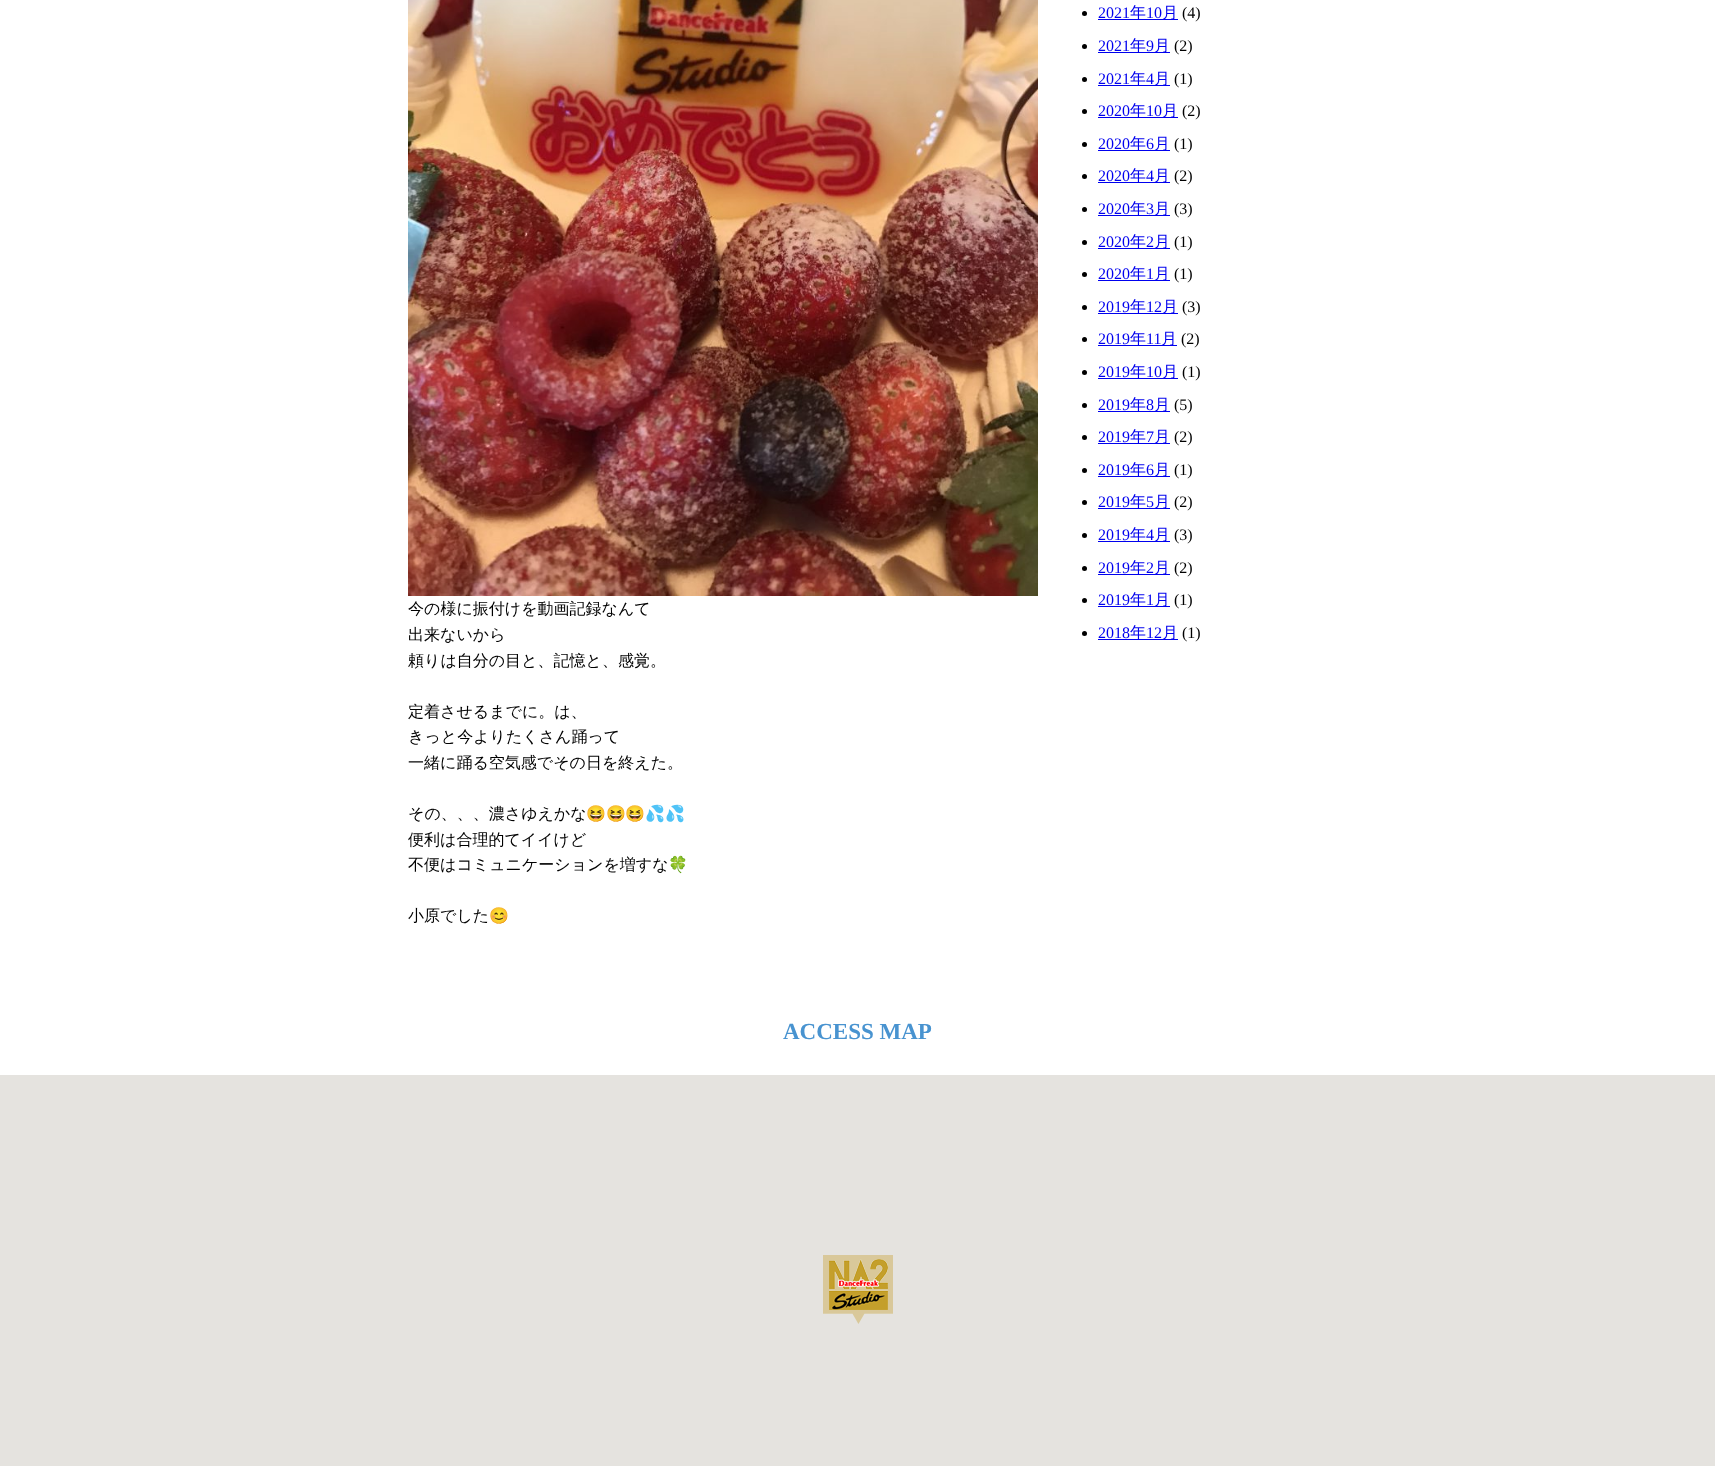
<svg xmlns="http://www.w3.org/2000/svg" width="1715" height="1466">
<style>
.a{font:16px Liberation Serif;fill:#00e}
.b{font:500 16px WenQuanYi Zen Hei;fill:#00e}
.c{font:16px Liberation Serif;fill:#000}
.d{font:500 16px WenQuanYi Zen Hei;fill:#000}
.e{font:16px Noto Color Emoji;fill:#000}
.f{font:bold 23px Liberation Serif;fill:#4893d0}
</style>
<rect width="100%" height="100%" fill="#fff"/>
<circle fill="#000" cx="1084.5" cy="13.5" r="2.5"/>
<path fill="#00e" d="M1098 19h80v1H1098z"/>
<circle fill="#000" cx="1084.5" cy="46.5" r="2.5"/>
<path fill="#00e" d="M1098 52h72v1H1098z"/>
<circle fill="#000" cx="1084.5" cy="79.5" r="2.5"/>
<path fill="#00e" d="M1098 85h72v1H1098z"/>
<circle fill="#000" cx="1084.5" cy="111.5" r="2.5"/>
<path fill="#00e" d="M1098 117h80v1H1098z"/>
<circle fill="#000" cx="1084.5" cy="144.5" r="2.5"/>
<path fill="#00e" d="M1098 150h72v1H1098z"/>
<circle fill="#000" cx="1084.5" cy="176.5" r="2.5"/>
<path fill="#00e" d="M1098 182h72v1H1098z"/>
<circle fill="#000" cx="1084.5" cy="209.5" r="2.5"/>
<path fill="#00e" d="M1098 215h72v1H1098z"/>
<circle fill="#000" cx="1084.5" cy="242.5" r="2.5"/>
<path fill="#00e" d="M1098 248h72v1H1098z"/>
<circle fill="#000" cx="1084.5" cy="274.5" r="2.5"/>
<path fill="#00e" d="M1098 280h72v1H1098z"/>
<circle fill="#000" cx="1084.5" cy="307.5" r="2.5"/>
<path fill="#00e" d="M1098 313h80v1H1098z"/>
<circle fill="#000" cx="1084.5" cy="339.5" r="2.5"/>
<path fill="#00e" d="M1098 345h79v1H1098z"/>
<circle fill="#000" cx="1084.5" cy="372.5" r="2.5"/>
<path fill="#00e" d="M1098 378h80v1H1098z"/>
<circle fill="#000" cx="1084.5" cy="405.5" r="2.5"/>
<path fill="#00e" d="M1098 411h72v1H1098z"/>
<circle fill="#000" cx="1084.5" cy="437.5" r="2.5"/>
<path fill="#00e" d="M1098 443h72v1H1098z"/>
<circle fill="#000" cx="1084.5" cy="470.5" r="2.5"/>
<path fill="#00e" d="M1098 476h72v1H1098z"/>
<circle fill="#000" cx="1084.5" cy="502.5" r="2.5"/>
<path fill="#00e" d="M1098 508h72v1H1098z"/>
<circle fill="#000" cx="1084.5" cy="535.5" r="2.5"/>
<path fill="#00e" d="M1098 541h72v1H1098z"/>
<circle fill="#000" cx="1084.5" cy="568.5" r="2.5"/>
<path fill="#00e" d="M1098 574h72v1H1098z"/>
<circle fill="#000" cx="1084.5" cy="600.5" r="2.5"/>
<path fill="#00e" d="M1098 606h72v1H1098z"/>
<circle fill="#000" cx="1084.5" cy="633.5" r="2.5"/>
<path fill="#00e" d="M1098 639h80v1H1098z"/>
<image href="1.png" x="408" y="0" width="630" height="596"/>
<path fill="#e5e3df" d="M0 1075h1715v391H0z"/>
<image href="2.png" x="823" y="1255" width="70" height="69"/>
<text class="a" x="1098" y="18">2021</text>
<text class="b" x="1130" y="18">年</text>
<text class="a" x="1146" y="18">10</text>
<text class="b" x="1162" y="18">月</text>
<text class="c" x="1182" y="18">(4)</text>
<text class="a" x="1098" y="51">2021</text>
<text class="b" x="1130" y="51">年</text>
<text class="a" x="1146" y="51">9</text>
<text class="b" x="1154" y="51">月</text>
<text class="c" x="1174" y="51">(2)</text>
<text class="a" x="1098" y="84">2021</text>
<text class="b" x="1130" y="84">年</text>
<text class="a" x="1146" y="84">4</text>
<text class="b" x="1154" y="84">月</text>
<text class="c" x="1174" y="84">(1)</text>
<text class="a" x="1098" y="116">2020</text>
<text class="b" x="1130" y="116">年</text>
<text class="a" x="1146" y="116">10</text>
<text class="b" x="1162" y="116">月</text>
<text class="c" x="1182" y="116">(2)</text>
<text class="a" x="1098" y="149">2020</text>
<text class="b" x="1130" y="149">年</text>
<text class="a" x="1146" y="149">6</text>
<text class="b" x="1154" y="149">月</text>
<text class="c" x="1174" y="149">(1)</text>
<text class="a" x="1098" y="181">2020</text>
<text class="b" x="1130" y="181">年</text>
<text class="a" x="1146" y="181">4</text>
<text class="b" x="1154" y="181">月</text>
<text class="c" x="1174" y="181">(2)</text>
<text class="a" x="1098" y="214">2020</text>
<text class="b" x="1130" y="214">年</text>
<text class="a" x="1146" y="214">3</text>
<text class="b" x="1154" y="214">月</text>
<text class="c" x="1174" y="214">(3)</text>
<text class="a" x="1098" y="247">2020</text>
<text class="b" x="1130" y="247">年</text>
<text class="a" x="1146" y="247">2</text>
<text class="b" x="1154" y="247">月</text>
<text class="c" x="1174" y="247">(1)</text>
<text class="a" x="1098" y="279">2020</text>
<text class="b" x="1130" y="279">年</text>
<text class="a" x="1146" y="279">1</text>
<text class="b" x="1154" y="279">月</text>
<text class="c" x="1174" y="279">(1)</text>
<text class="a" x="1098" y="312">2019</text>
<text class="b" x="1130" y="312">年</text>
<text class="a" x="1146" y="312">12</text>
<text class="b" x="1162" y="312">月</text>
<text class="c" x="1182" y="312">(3)</text>
<text class="a" x="1098" y="344">2019</text>
<text class="b" x="1130" y="344">年</text>
<text class="a" x="1146" y="344">11</text>
<text class="b" x="1161" y="344">月</text>
<text class="c" x="1181" y="344">(2)</text>
<text class="a" x="1098" y="377">2019</text>
<text class="b" x="1130" y="377">年</text>
<text class="a" x="1146" y="377">10</text>
<text class="b" x="1162" y="377">月</text>
<text class="c" x="1182" y="377">(1)</text>
<text class="a" x="1098" y="410">2019</text>
<text class="b" x="1130" y="410">年</text>
<text class="a" x="1146" y="410">8</text>
<text class="b" x="1154" y="410">月</text>
<text class="c" x="1174" y="410">(5)</text>
<text class="a" x="1098" y="442">2019</text>
<text class="b" x="1130" y="442">年</text>
<text class="a" x="1146" y="442">7</text>
<text class="b" x="1154" y="442">月</text>
<text class="c" x="1174" y="442">(2)</text>
<text class="a" x="1098" y="475">2019</text>
<text class="b" x="1130" y="475">年</text>
<text class="a" x="1146" y="475">6</text>
<text class="b" x="1154" y="475">月</text>
<text class="c" x="1174" y="475">(1)</text>
<text class="a" x="1098" y="507">2019</text>
<text class="b" x="1130" y="507">年</text>
<text class="a" x="1146" y="507">5</text>
<text class="b" x="1154" y="507">月</text>
<text class="c" x="1174" y="507">(2)</text>
<text class="a" x="1098" y="540">2019</text>
<text class="b" x="1130" y="540">年</text>
<text class="a" x="1146" y="540">4</text>
<text class="b" x="1154" y="540">月</text>
<text class="c" x="1174" y="540">(3)</text>
<text class="a" x="1098" y="573">2019</text>
<text class="b" x="1130" y="573">年</text>
<text class="a" x="1146" y="573">2</text>
<text class="b" x="1154" y="573">月</text>
<text class="c" x="1174" y="573">(2)</text>
<text class="a" x="1098" y="605">2019</text>
<text class="b" x="1130" y="605">年</text>
<text class="a" x="1146" y="605">1</text>
<text class="b" x="1154" y="605">月</text>
<text class="c" x="1174" y="605">(1)</text>
<text class="a" x="1098" y="638">2018</text>
<text class="b" x="1130" y="638">年</text>
<text class="a" x="1146" y="638">12</text>
<text class="b" x="1162" y="638">月</text>
<text class="c" x="1182" y="638">(1)</text>
<text class="d" x="408" y="614">今の様に振付けを動画記録なんて</text>
<text class="d" x="408" y="640">出来ないから</text>
<text class="d" x="408" y="666">頼りは自分の目と、記憶と、感覚。</text>
<text class="d" x="408" y="717">定着させるまでに。は、</text>
<text class="d" x="408" y="742">きっと今よりたくさん踊って</text>
<text class="d" x="408" y="768">一緒に踊る空気感でその日を終えた。</text>
<text class="d" x="408" y="819">その、、、濃さゆえかな</text>
<text class="e" x="586" y="819">😆😆😆💦💦</text>
<text class="d" x="408" y="845">便利は合理的てイイけど</text>
<text class="d" x="408" y="870">不便はコミュニケーションを増すな</text>
<text class="e" x="668" y="870">🍀</text>
<text class="d" x="408" y="921">小原でした</text>
<text class="e" x="489" y="921">😊</text>
<text class="f" x="783" y="1039">ACCESS MAP</text>
</svg>
